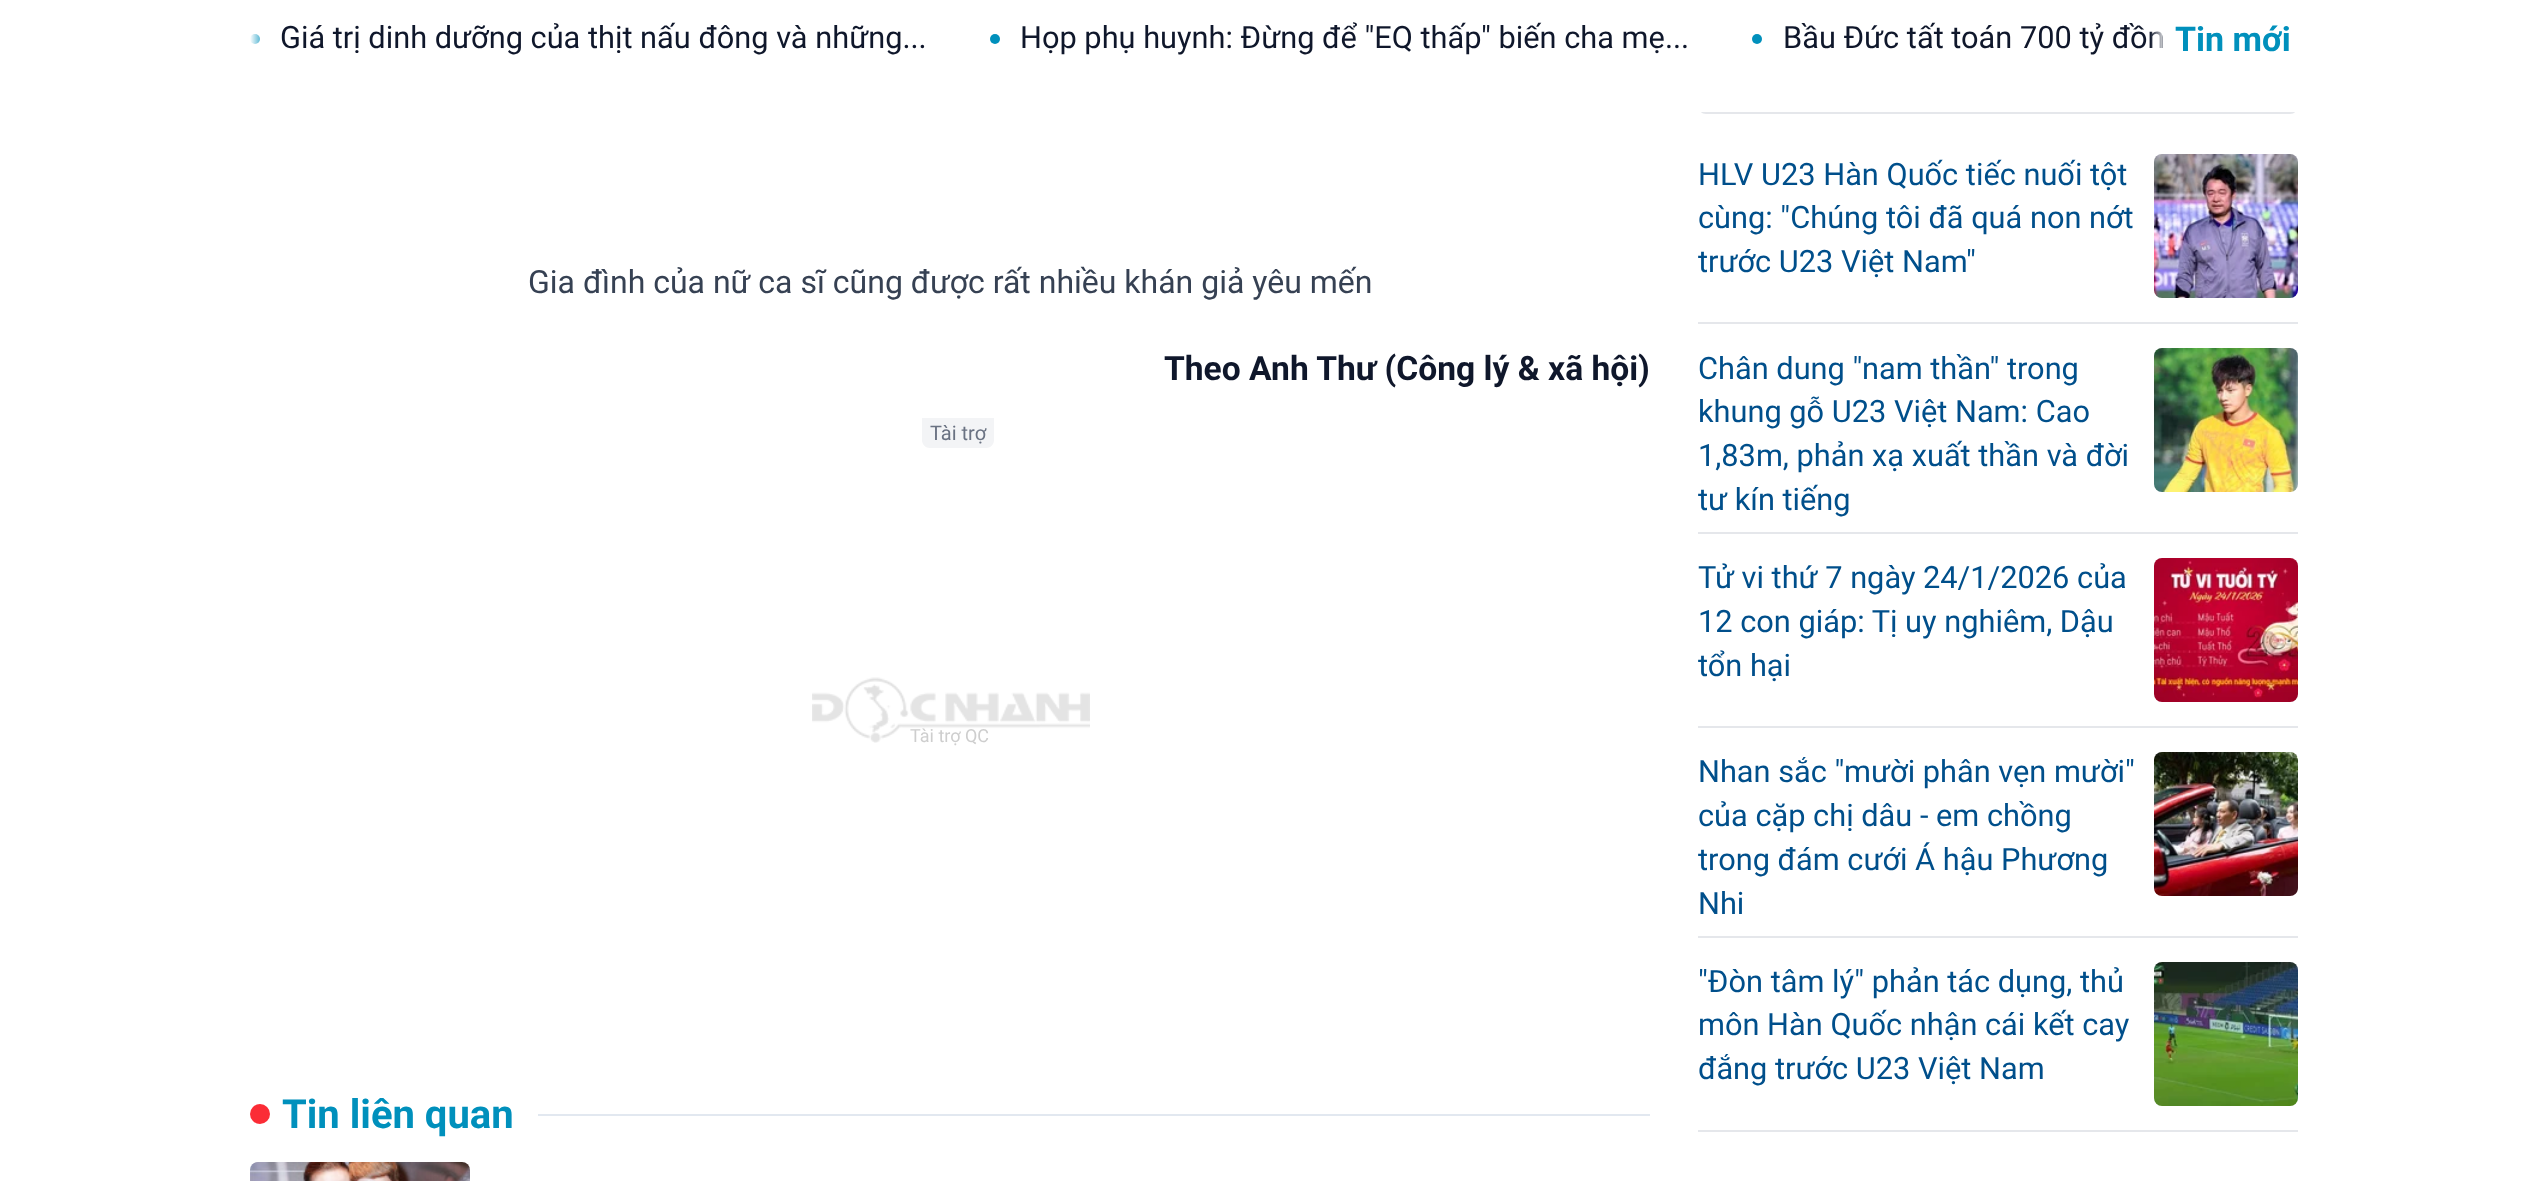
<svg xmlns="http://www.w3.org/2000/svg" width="2547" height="1181">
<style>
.a{font:30.75px Roboto;fill:#0f172b}
.b{font:bold 34px Roboto;fill:#0090bc}
.c{font:32px Roboto;fill:#364153}
.d{font:bold 33.6px Roboto;fill:#0f172b}
.e{font:20px Roboto;fill:#6a7282}
.f{font:18px Roboto;fill:#cecece}
.g{font:bold 40px Roboto;fill:#0090bc}
.h{font:30.75px Roboto;fill:#004f8b}
</style>
<defs>
<linearGradient id="g1" gradientUnits="userSpaceOnUse" x1="250" y1="40" x2="266" y2="40"><stop offset="0" stop-color="#fff"/><stop offset="1" stop-color="#fff" stop-opacity="0"/></linearGradient>
<clipPath id="clip1"><rect x="1698" y="-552" width="600" height="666" rx="8"/></clipPath>
<linearGradient id="g2" gradientUnits="userSpaceOnUse" x1="2166" y1="40" x2="2150" y2="40"><stop offset="0" stop-color="#fff"/><stop offset="1" stop-color="#fff" stop-opacity="0"/></linearGradient>
</defs>
<rect width="100%" height="100%" fill="#fff"/>
<circle fill="#0090bc" cx="255" cy="39" r="5"/>
<circle fill="#0090bc" cx="995" cy="39" r="5"/>
<circle fill="#0090bc" cx="1757" cy="39" r="5"/>
<path fill="url(#g1)" d="M250 34h10v10H250z"/>
<path fill="#f3f4f6" d="M922 418h72v22c0 4.5-3.5 8-8 8h-56c-4.5 0-8-3.5-8-8z"/>
<image href="1.png" x="812" y="677" width="278" height="66"/>
<circle fill="#fb2c36" cx="260" cy="1114" r="10"/>
<path fill="#e2e8f0" d="M538 1114h1112v2H538z"/>
<image href="2.png" x="250" y="1162" width="220" height="19"/>
<g clip-path="url(#clip1)">
<path fill="#e5e7eb" d="M1698 112h600v2H1698z"/>
</g>
<path fill="#e5e7eb" d="M1698 322h600v2H1698z"/>
<rect fill="#f1f5f9" x="2154" y="154" width="144" height="144" rx="8"/>
<image href="3.png" x="2154" y="154" width="144" height="144"/>
<path fill="#e5e7eb" d="M1698 532h600v2H1698z"/>
<rect fill="#f1f5f9" x="2154" y="348" width="144" height="144" rx="8"/>
<image href="4.png" x="2154" y="348" width="144" height="144"/>
<path fill="#e5e7eb" d="M1698 726h600v2H1698z"/>
<rect fill="#f1f5f9" x="2154" y="558" width="144" height="144" rx="8"/>
<image href="5.png" x="2154" y="558" width="144" height="144"/>
<path fill="#e5e7eb" d="M1698 936h600v2H1698z"/>
<image href="6.png" x="2154" y="752" width="144" height="144"/>
<path fill="#e5e7eb" d="M1698 1130h600v2H1698z"/>
<rect fill="#f1f5f9" x="2154" y="962" width="144" height="144" rx="8"/>
<image href="7.png" x="2154" y="962" width="144" height="144"/>
<text class="a" x="280" y="48">Giá trị dinh dưỡng của thịt nấu đông và những...</text>
<text class="a" x="1020" y="48">Họp phụ huynh: Đừng để "EQ thấp" biến cha mẹ...</text>
<text class="a" x="1783" y="48">Bầu Đức tất toán 700 tỷ đồn</text>
<path fill="url(#g2)" d="M2150 31h12v17H2150z"/>
<text class="b" x="2175" y="51">Tin mới</text>
<text class="c" x="528" y="293">Gia đình của nữ ca sĩ cũng được rất nhiều khán giả yêu mến</text>
<text class="d" x="1164" y="380">Theo Anh Thư (Công lý &amp; xã hội)</text>
<text class="e" x="930" y="440">Tài trợ</text>
<text class="f" x="910" y="742">Tài trợ QC</text>
<text class="g" x="282" y="1128">Tin liên quan</text>
<text class="h" x="1698" y="185">HLV U23 Hàn Quốc tiếc nuối tột</text>
<text class="h" x="1698" y="228">cùng: "Chúng tôi đã quá non nớt</text>
<text class="h" x="1698" y="272">trước U23 Việt Nam"</text>
<text class="h" x="1698" y="379">Chân dung "nam thần" trong</text>
<text class="h" x="1698" y="422">khung gỗ U23 Việt Nam: Cao</text>
<text class="h" x="1698" y="466">1,83m, phản xạ xuất thần và đời</text>
<text class="h" x="1698" y="510">tư kín tiếng</text>
<text class="h" x="1698" y="588">Tử vi thứ 7 ngày 24/1/2026 của</text>
<text class="h" x="1698" y="632">12 con giáp: Tị uy nghiêm, Dậu</text>
<text class="h" x="1698" y="676">tổn hại</text>
<text class="h" x="1698" y="782">Nhan sắc "mười phân vẹn mười"</text>
<text class="h" x="1698" y="826">của cặp chị dâu - em chồng</text>
<text class="h" x="1698" y="870">trong đám cưới Á hậu Phương</text>
<text class="h" x="1698" y="914">Nhi</text>
<text class="h" x="1698" y="992">"Đòn tâm lý" phản tác dụng, thủ</text>
<text class="h" x="1698" y="1035">môn Hàn Quốc nhận cái kết cay</text>
<text class="h" x="1698" y="1079">đắng trước U23 Việt Nam</text>
</svg>
